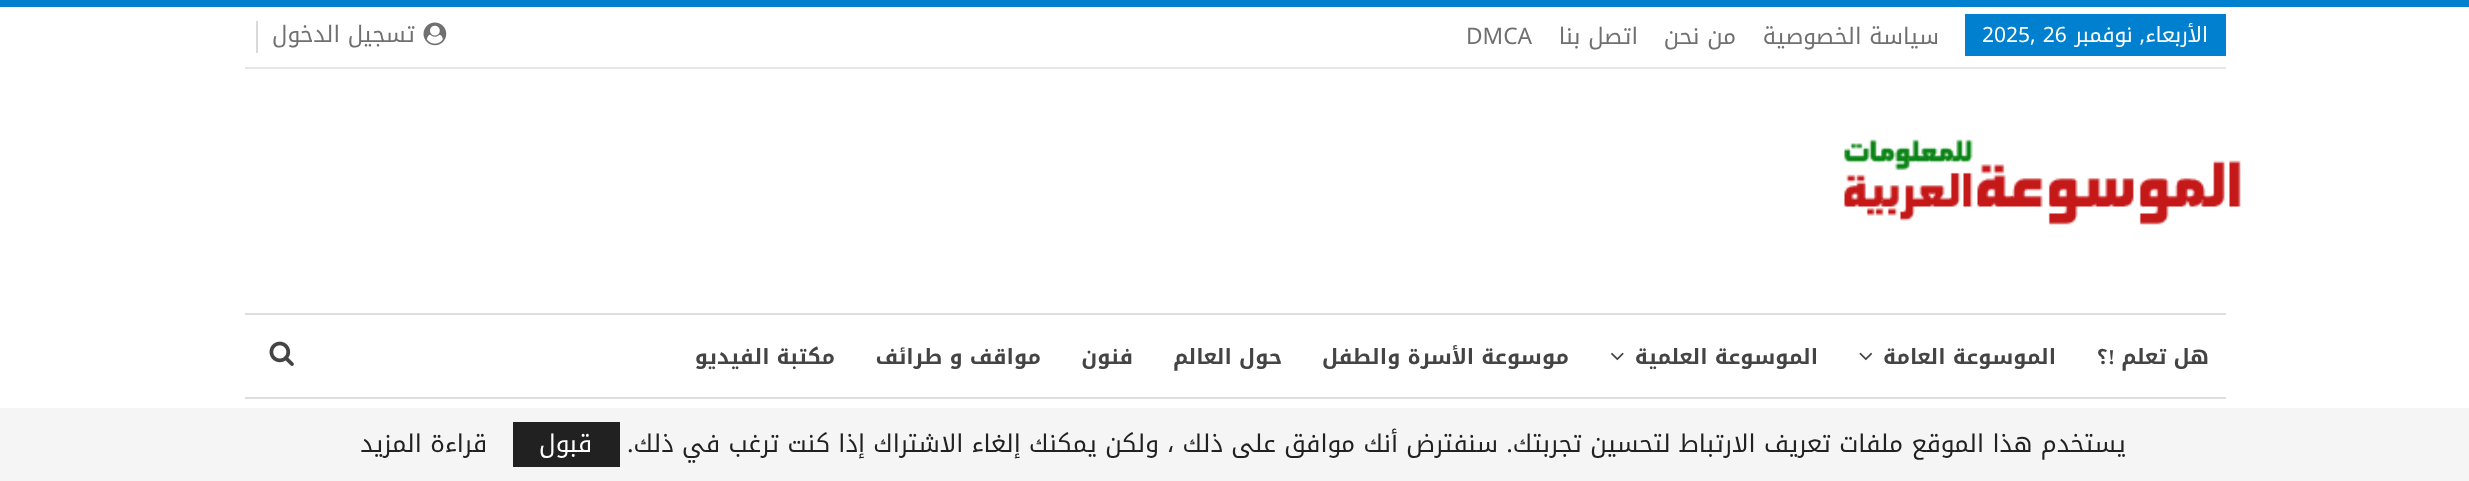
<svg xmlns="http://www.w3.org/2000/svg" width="2469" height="481">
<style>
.a{font:21px Noto Kufi Arabic;direction:rtl;fill:#fff}
.b{font:21px Noto Kufi Arabic;fill:#fff}
.c{font:22.75px Noto Kufi Arabic;direction:rtl;fill:#707070}
.d{font:22.75px Noto Kufi Arabic;fill:#707070}
.e{font:bold 21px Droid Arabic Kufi;direction:rtl;fill:#444}
.f{font:bold 21px Liberation Serif;direction:rtl;fill:#444}
.g{font:24.5px Noto Kufi Arabic;direction:rtl;fill:#212121}
.h{font:24.5px Noto Kufi Arabic;direction:rtl;fill:#fff}
</style>
<rect width="100%" height="100%" fill="#fff"/>
<path fill="#0080ce" d="M0 0h2469v7H0z"/>
<path fill="#e6e6e6" d="M245 67h1981v2H245z"/>
<path fill="#0080ce" d="M1965 14h261v42H1965z"/>
<image href="1.png" x="423" y="22" width="24" height="24"/>
<path fill="#d9d9d9" d="M256 21h2v32H256z"/>
<image href="2.png" x="1844" y="139" width="397" height="86"/>
<path fill="#dedede" d="M245 313h1981v2H245z"/>
<path fill="#dedede" d="M245 397h1981v2H245z"/>
<image href="3.png" x="1859" y="352" width="14" height="9"/>
<image href="4.png" x="1611" y="352" width="13" height="9"/>
<image href="5.png" x="269" y="341" width="25" height="25"/>
<path fill="#f5f5f5" d="M0 408h2469v73H0z"/>
<path fill="#212121" d="M513 422h107v45H513z"/>
<text class="a" x="2208" y="42">الأربعاء, نوفمبر</text>
<text class="b" x="1982" y="42">2025, 26</text>
<text class="c" x="1939" y="44">سياسة الخصوصية</text>
<text class="c" x="1736" y="44">من نحن</text>
<text class="c" x="1638" y="44">اتصل بنا</text>
<text class="d" x="1466" y="44">DMCA</text>
<text class="c" x="415" y="42">تسجيل الدخول</text>
<text class="e" x="2209" y="364">هل تعلم</text>
<text class="f" x="2115" y="364">!</text>
<text class="e" x="2108" y="364">؟</text>
<text class="e" x="2056" y="364">الموسوعة العامة</text>
<text class="e" x="1818" y="364">الموسوعة العلمية</text>
<text class="e" x="1569" y="364">موسوعة الأسرة والطفل</text>
<text class="e" x="1282" y="364">حول العالم</text>
<text class="e" x="1133" y="364">فنون</text>
<text class="e" x="1041" y="364">مواقف و طرائف</text>
<text class="e" x="835" y="364">مكتبة الفيديو</text>
<text class="g" x="2126" y="452">يستخدم هذا الموقع ملفات تعريف الارتباط لتحسين تجربتك. سنفترض أنك موافق على ذلك ، ولكن يمكنك إلغاء الاشتراك إذا كنت ترغب في ذلك.</text>
<text class="h" x="592" y="452">قبول</text>
<text class="g" x="487" y="452">قراءة المزيد</text>
</svg>
